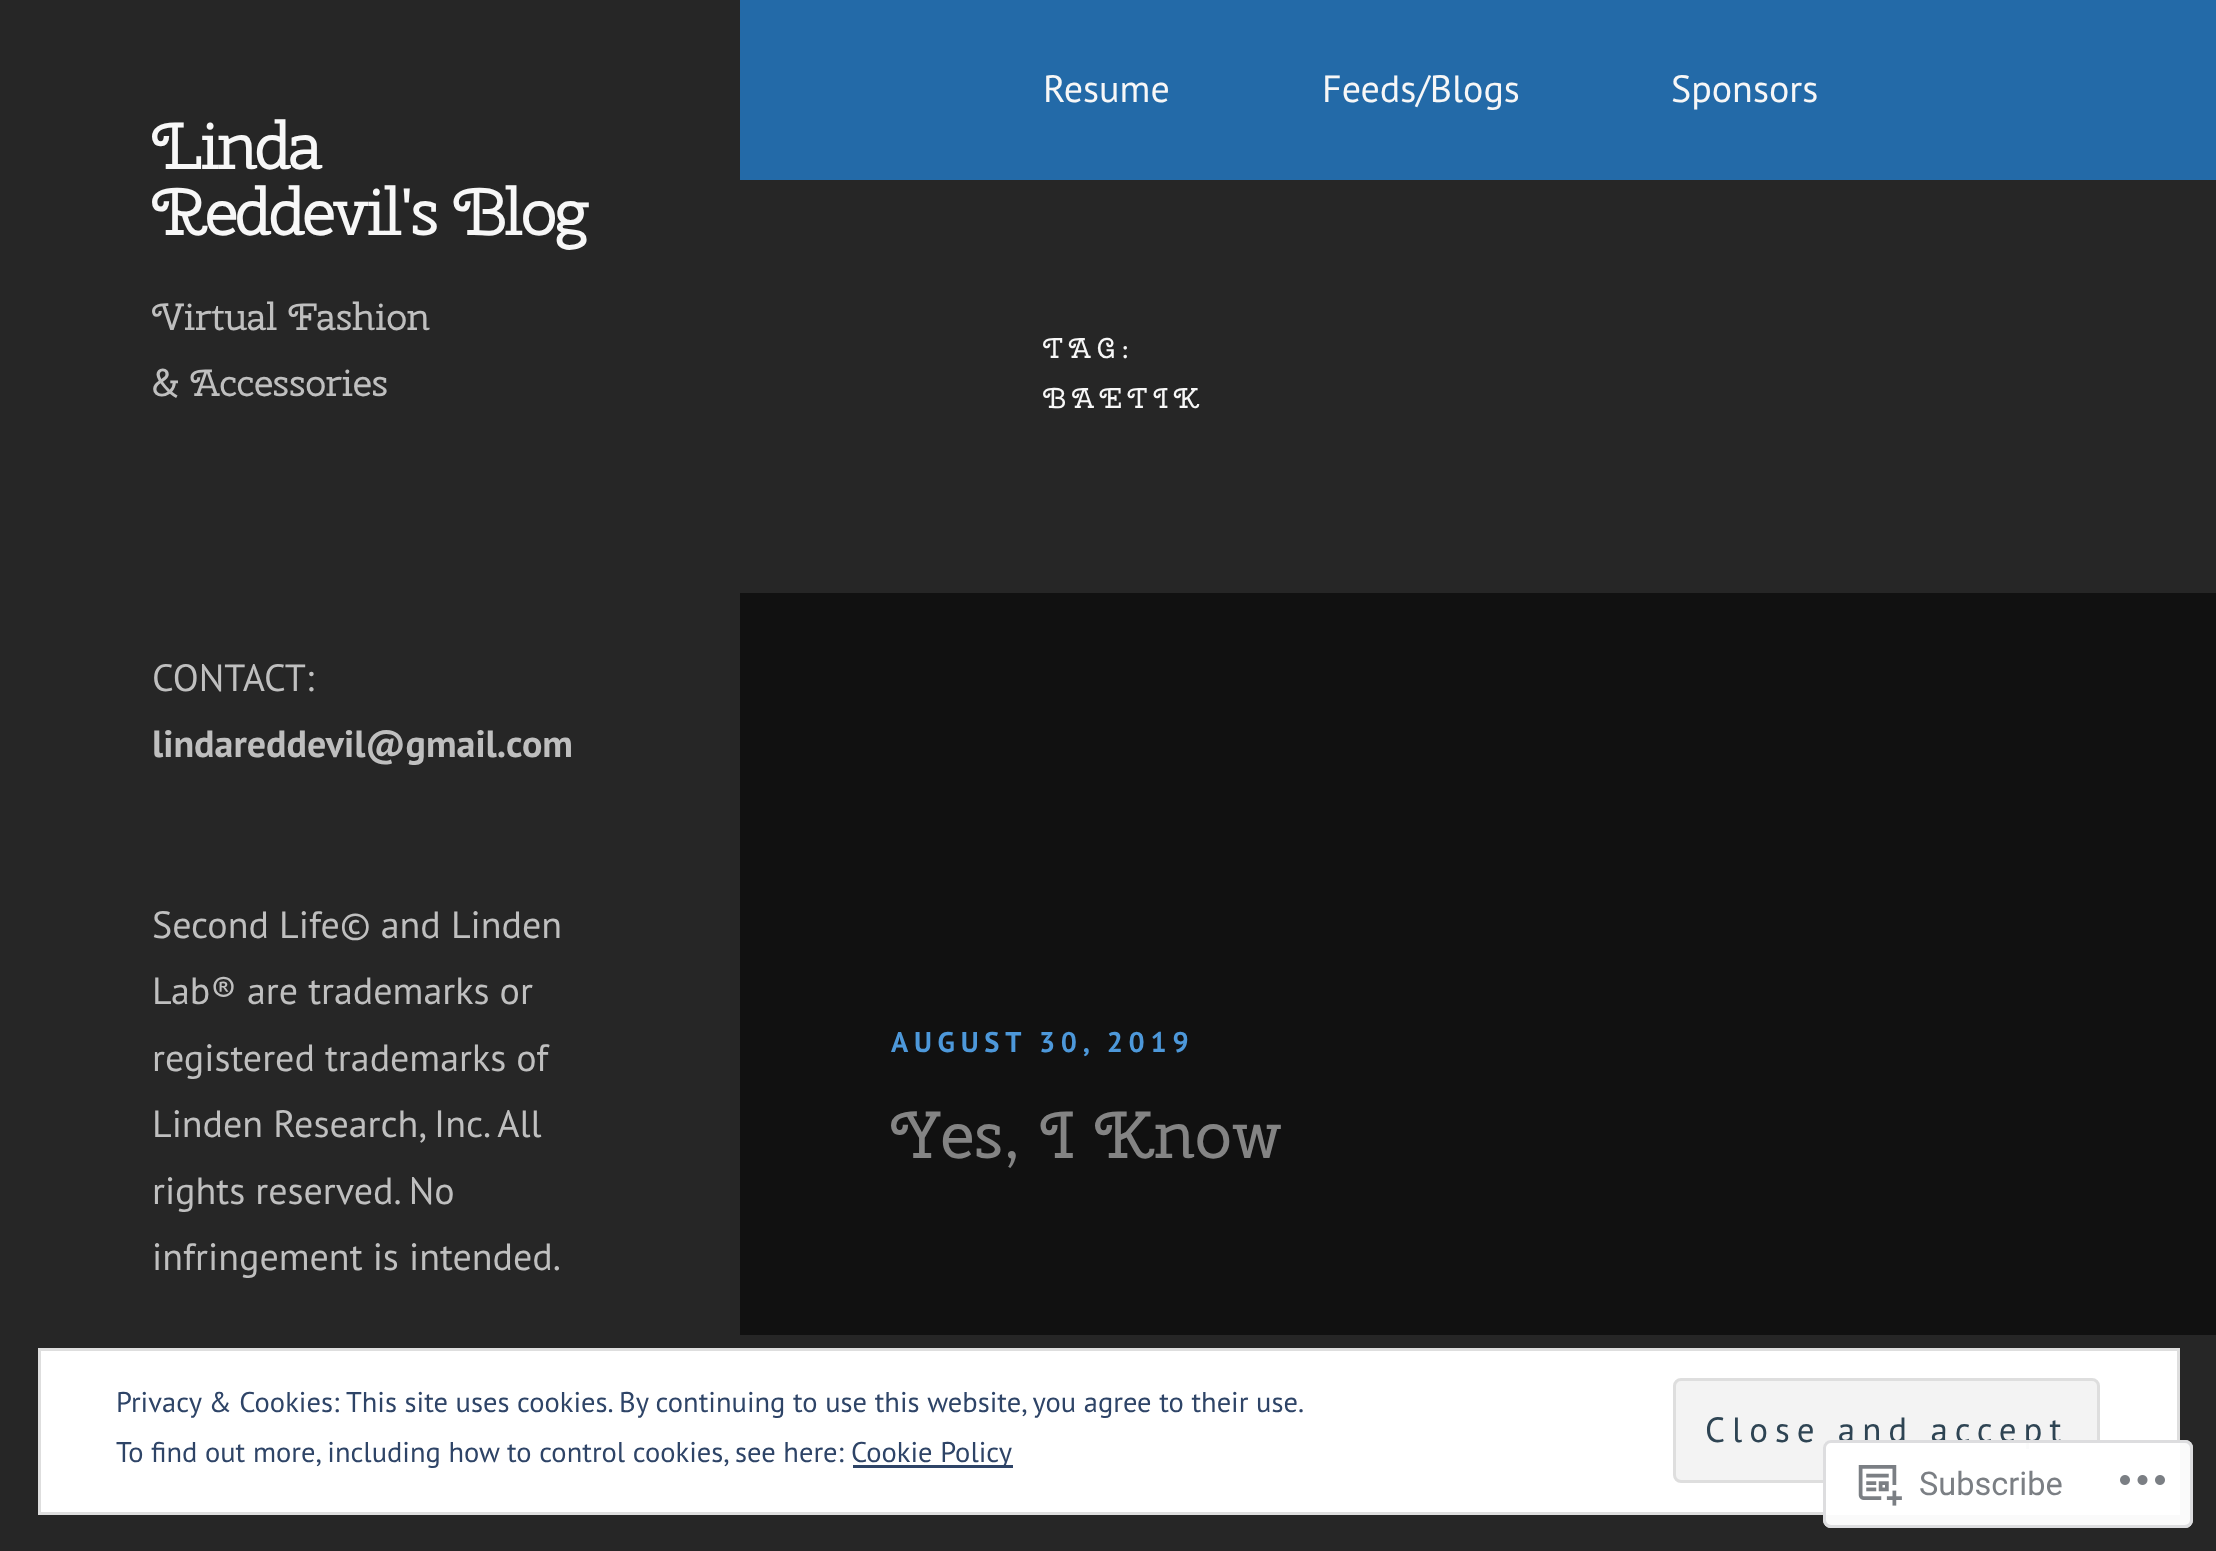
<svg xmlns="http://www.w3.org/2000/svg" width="2216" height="1551">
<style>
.a{font:66.5px Cherry Swash;letter-spacing:-3.3px;fill:#f7f7f7}
.b{font:38px Cherry Swash;letter-spacing:-0.4px;fill:#bfbfbf}
.c{font:38px PT Sans;fill:#f7f7f7}
.d{font:28.5px Cherry Swash;letter-spacing:5.75px;fill:#f7f7f7}
.e{font:bold 28.5px PT Sans;letter-spacing:5.75px;fill:#4d98da}
.f{font:66.5px Cherry Swash;fill:#848484}
.g{font:38px PT Sans;fill:#bfbfbf}
.h{font:bold 38px PT Sans;fill:#bfbfbf}
.i{font:28.5px PT Sans;fill:#2e4467}
.j{font:35px PT Sans;letter-spacing:7px;fill:#2e4453}
.k{font:32.5px Roboto;fill:#7b7f84}
</style>
<rect width="100%" height="100%" fill="#262626"/>
<path fill="#236aa8" d="M740 0h1476v180H740z"/>
<path fill="#111" d="M740 593h1476v742H740z"/>
<path fill="#fff" stroke="#dedede" stroke-width="3" d="M39.5 1349.5h2139v164H39.5z"/>
<rect fill="#f3f3f3" stroke="#dedede" stroke-width="3" x="1674.5" y="1379.5" width="424" height="102" rx="6.5"/>
<path fill="#2e4467" d="M853 1465h160v3H853z"/>
<text class="a" x="152" y="169">Linda</text>
<text class="a" x="152" y="235">Reddevil's Blog</text>
<text class="b" x="152" y="330">Virtual Fashion</text>
<text class="b" x="152" y="396">&amp; Accessories</text>
<text class="c" x="1043" y="102">Resume</text>
<text class="c" x="1322" y="102">Feeds/Blogs</text>
<text class="c" x="1671" y="102">Sponsors</text>
<text class="d" x="1043" y="358">TAG:</text>
<text class="d" x="1043" y="408">BAETIK</text>
<text class="e" x="891" y="1052">AUGUST 30, 2019</text>
<text class="f" x="891" y="1158">Yes, I Know</text>
<text class="g" x="152" y="691">CONTACT:</text>
<text class="h" x="152" y="757">lindareddevil@gmail.com</text>
<text class="g" x="152" y="938">Second Life© and Linden</text>
<text class="g" x="152" y="1004">Lab® are trademarks or</text>
<text class="g" x="152" y="1071">registered trademarks of</text>
<text class="g" x="152" y="1137">Linden Research, Inc. All</text>
<text class="g" x="152" y="1204">rights reserved. No</text>
<text class="g" x="152" y="1270">infringement is intended.</text>
<text class="i" x="116" y="1412">Privacy &amp; Cookies: This site uses cookies. By continuing to use this website, you agree to their use.</text>
<text class="j" x="1705" y="1442">Close and accept</text>
<text class="i" x="116" y="1462">To find out more, including how to control cookies, see here:</text>
<text class="i" x="851" y="1462">Cookie Policy</text>
<rect fill="#fffffffa" x="1823" y="1440" width="370" height="88" rx="8"/>
<rect fill="none" stroke="#dcdcdefa" stroke-width="3" x="1824.5" y="1441.5" width="367" height="85" rx="6.5"/>
<image href="1.png" x="1858" y="1465" width="44" height="41"/>
<text class="k" x="1919" y="1495">Subscribe</text>
<image href="2.png" x="2120" y="1475" width="45" height="10"/>
</svg>
